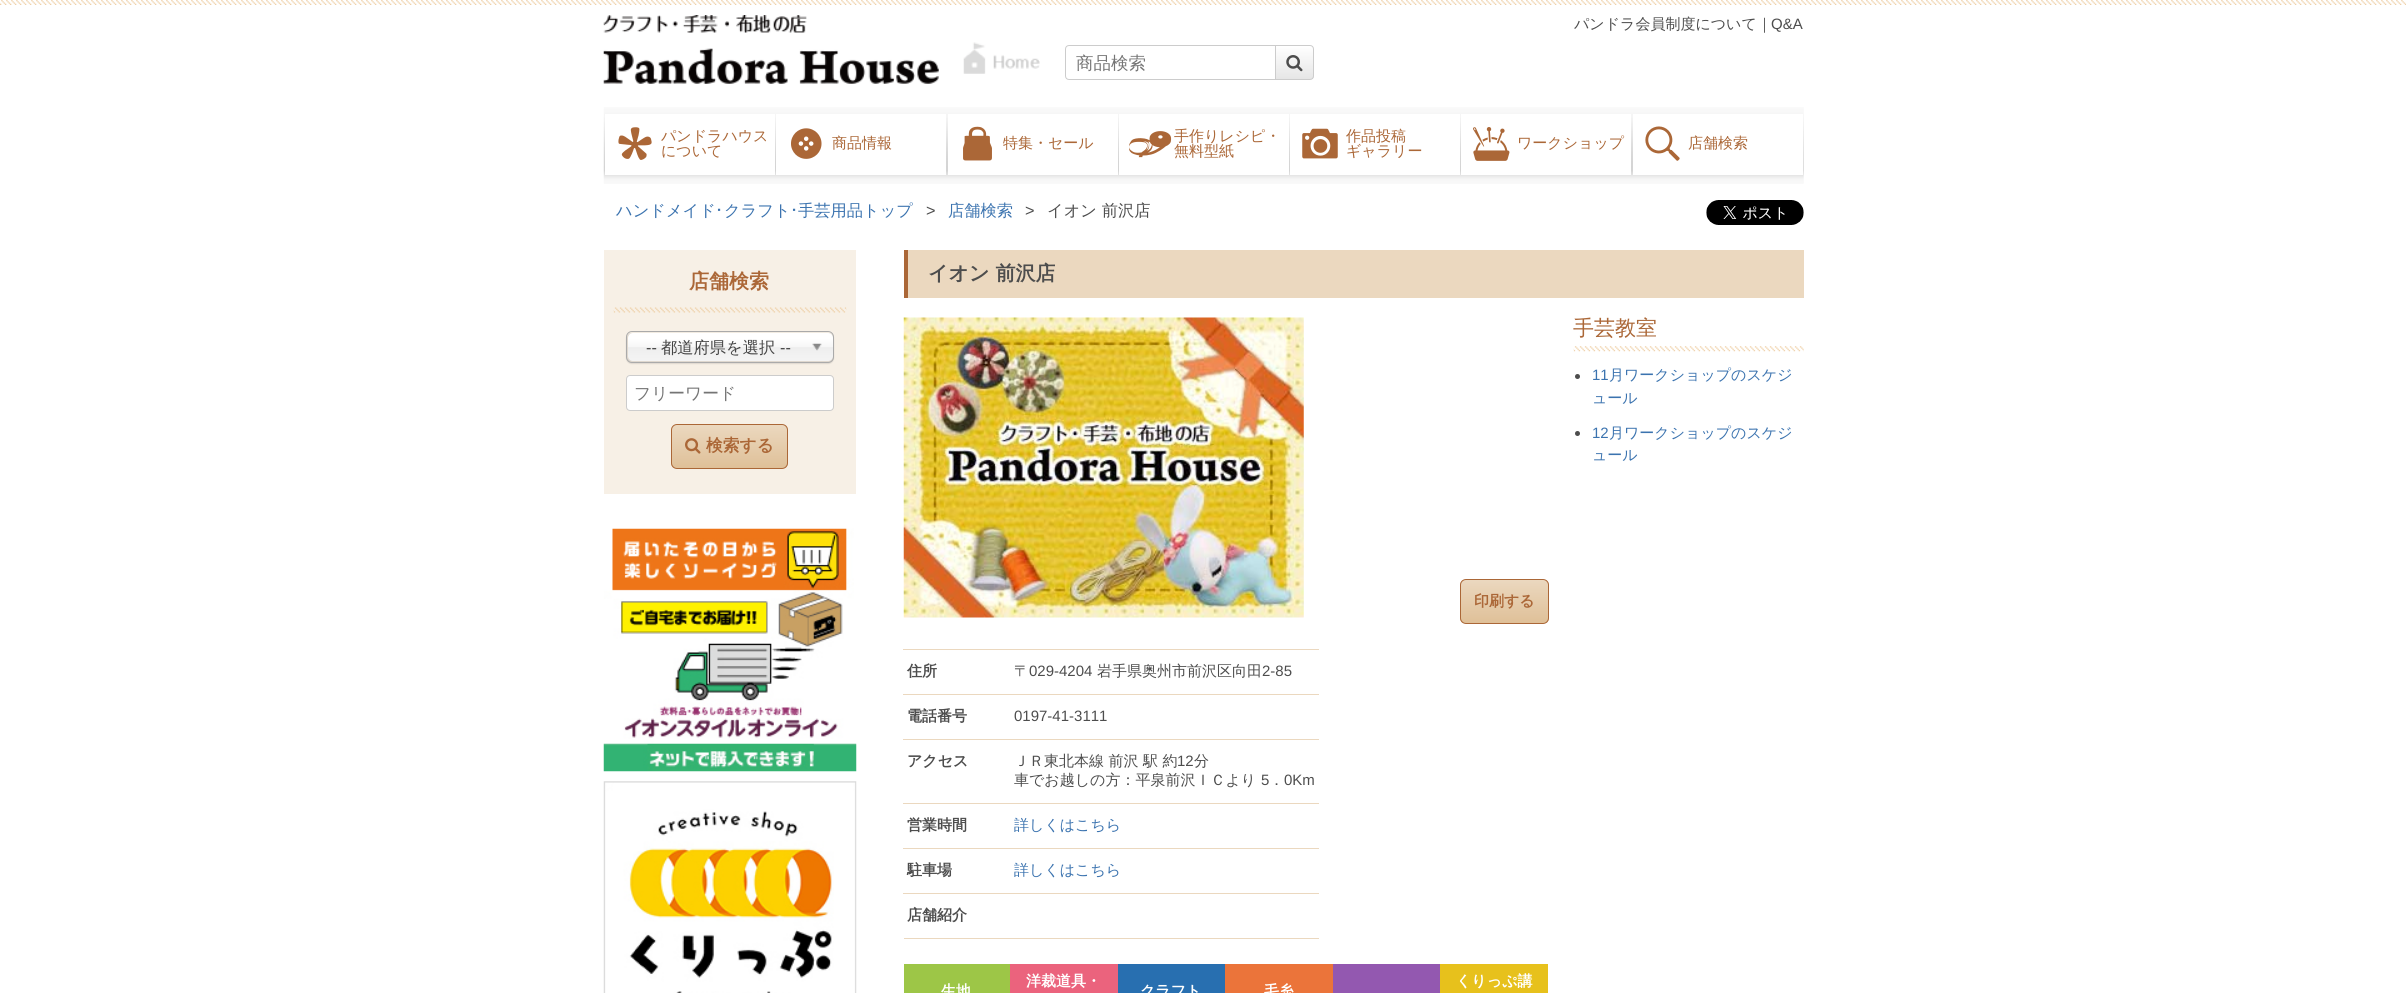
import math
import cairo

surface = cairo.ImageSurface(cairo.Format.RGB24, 2406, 993)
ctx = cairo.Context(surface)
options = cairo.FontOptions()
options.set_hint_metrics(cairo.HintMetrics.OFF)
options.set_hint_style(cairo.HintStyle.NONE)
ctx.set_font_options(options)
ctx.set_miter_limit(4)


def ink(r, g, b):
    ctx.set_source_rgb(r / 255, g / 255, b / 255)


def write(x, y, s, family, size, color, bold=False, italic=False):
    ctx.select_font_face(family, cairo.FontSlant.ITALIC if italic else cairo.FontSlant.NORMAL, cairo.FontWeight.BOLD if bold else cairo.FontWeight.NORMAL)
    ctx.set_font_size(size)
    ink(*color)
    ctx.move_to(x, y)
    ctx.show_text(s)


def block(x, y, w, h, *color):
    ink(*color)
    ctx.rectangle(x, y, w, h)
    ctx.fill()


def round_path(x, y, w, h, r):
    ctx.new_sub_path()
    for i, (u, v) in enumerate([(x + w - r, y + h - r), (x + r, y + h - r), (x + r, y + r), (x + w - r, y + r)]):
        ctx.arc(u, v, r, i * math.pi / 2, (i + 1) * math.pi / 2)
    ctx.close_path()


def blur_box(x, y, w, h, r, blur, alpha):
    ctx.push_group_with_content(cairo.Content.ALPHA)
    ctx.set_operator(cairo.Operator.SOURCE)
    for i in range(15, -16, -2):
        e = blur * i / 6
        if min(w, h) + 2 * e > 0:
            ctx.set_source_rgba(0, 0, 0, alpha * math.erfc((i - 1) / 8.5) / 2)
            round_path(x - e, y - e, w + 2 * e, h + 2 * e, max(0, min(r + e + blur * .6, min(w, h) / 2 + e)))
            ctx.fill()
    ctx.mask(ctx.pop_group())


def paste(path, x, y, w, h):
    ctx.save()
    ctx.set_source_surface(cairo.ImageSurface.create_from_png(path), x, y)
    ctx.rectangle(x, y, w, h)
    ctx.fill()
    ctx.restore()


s1 = dict(family="WenQuanYi Zen Hei Medium", size=15, color=(77, 77, 77))
s2 = dict(family="Liberation Sans", size=15, color=(77, 77, 77))
s3 = dict(family="WenQuanYi Zen Hei Medium", size=17.5, color=(117, 117, 117))
s4 = dict(family="WenQuanYi Zen Hei Medium", size=15, color=(171, 103, 55))
s5 = dict(family="WenQuanYi Zen Hei Medium", size=16.25, color=(59, 115, 175))
s6 = dict(family="IPAPGothic", size=16.25, color=(59, 115, 175))
s7 = dict(family="Liberation Sans", size=16.25, color=(77, 77, 77))
s8 = dict(family="WenQuanYi Zen Hei Medium", size=16.25, color=(77, 77, 77))
s9 = dict(family="WenQuanYi Zen Hei", size=20, color=(171, 103, 55), bold=True)
s10 = dict(family="Liberation Sans", size=16.25, color=(68, 68, 68))
s11 = dict(family="WenQuanYi Zen Hei Medium", size=16.25, color=(68, 68, 68))
s12 = dict(family="WenQuanYi Zen Hei Medium", size=16.75, color=(117, 117, 117))
s13 = dict(family="WenQuanYi Zen Hei", size=16.75, color=(171, 103, 55), bold=True)
s14 = dict(family="WenQuanYi Zen Hei", size=20, color=(77, 77, 77), bold=True)
s15 = dict(family="WenQuanYi Zen Hei Medium", size=21, color=(171, 103, 55))
s16 = dict(family="Liberation Sans", size=15, color=(59, 115, 175))
s17 = dict(family="WenQuanYi Zen Hei Medium", size=15, color=(59, 115, 175))
s18 = dict(family="WenQuanYi Zen Hei", size=15, color=(171, 103, 55), bold=True)
s19 = dict(family="WenQuanYi Zen Hei", size=15, color=(77, 77, 77), bold=True)
s20 = dict(family="WenQuanYi Zen Hei", size=15, color=(255, 255, 255), bold=True)

ink(255, 255, 255)
ctx.paint()
paste("pic1.png", 0, 0, 2406, 5)
write(1574, 29, "パンドラ会員制度について", **s1)
write(1757, 29, "｜", **s1)
write(1771, 29, "Q&A", **s2)
paste("pic2.png", 603, 15, 437, 69)
ctx.new_path()
ctx.move_to(1069, 45.5)
ctx.line_to(1275.5, 45.5)
ctx.line_to(1275.5, 79.5)
ctx.line_to(1069, 79.5)
ctx.curve_to(1067, 79.5, 1065.5, 78, 1065.5, 76)
ctx.line_to(1065.5, 49)
ctx.curve_to(1065.5, 47, 1067, 45.5, 1069, 45.5)
ctx.close_path()
ink(204, 204, 204)
ctx.set_line_width(1)
ctx.stroke()
write(1076, 69, "商品検索", **s3)
ctx.save()
ctx.new_path()
ctx.move_to(1275, 45)
ctx.line_to(1310, 45)
ctx.curve_to(1312, 45, 1314, 47, 1314, 49)
ctx.line_to(1314, 76)
ctx.curve_to(1314, 78, 1312, 80, 1310, 80)
ctx.line_to(1275, 80)
ctx.close_path()
ctx.clip()
gradient = cairo.LinearGradient(1294, 46, 1294, 79)
gradient.add_color_stop_rgba(0, 1, 1, 1, 1)
gradient.add_color_stop_rgba(1, 0.902, 0.902, 0.902, 1)
ctx.set_source(gradient)
ctx.rectangle(1276, 46, 38, 33)
ctx.fill()
ctx.restore()
ctx.new_path()
ctx.move_to(1275.5, 45.5)
ctx.line_to(1310, 45.5)
ctx.curve_to(1312, 45.5, 1313.5, 47, 1313.5, 49)
ctx.line_to(1313.5, 76)
ctx.curve_to(1313.5, 78, 1312, 79.5, 1310, 79.5)
ctx.line_to(1275.5, 79.5)
ctx.close_path()
ink(204, 204, 204)
ctx.stroke()
paste("pic3.png", 1286, 55, 17, 17)
paste("pic4.png", 603, 107, 1201, 77)
block(605, 114, 170, 61, 255, 255, 255)
paste("pic5.png", 618, 127, 34, 33)
write(661, 141, "パンドラハウス", **s4)
write(661, 156, "について", **s4)
block(776, 114, 170, 61, 255, 255, 255)
paste("pic6.png", 791, 128, 31, 31)
write(832, 148, "商品情報", **s4)
block(948, 114, 170, 61, 255, 255, 255)
paste("pic7.png", 963, 126, 29, 35)
write(1003, 148, "特集・セール", **s4)
block(1119, 114, 170, 61, 255, 255, 255)
paste("pic8.png", 1129, 131, 43, 27)
write(1174, 141, "手作りレシピ・", **s4)
write(1174, 156, "無料型紙", **s4)
block(1290, 114, 170, 61, 255, 255, 255)
paste("pic9.png", 1302, 128, 36, 31)
write(1346, 141, "作品投稿", **s4)
write(1346, 156, "ギャラリー", **s4)
block(1461, 114, 170, 61, 255, 255, 255)
paste("pic10.png", 1473, 127, 37, 34)
write(1517, 148, "ワークショップ", **s4)
block(1633, 114, 170, 61, 255, 255, 255)
paste("pic11.png", 1645, 126, 35, 35)
write(1688, 148, "店舗検索", **s4)
write(616, 216, "ハンドメイド", **s5)
write(715, 216, "･", **s6)
write(724, 216, "クラフト", **s5)
write(790, 216, "･", **s6)
write(798, 216, "手芸用品トップ", **s5)
write(926, 216, ">", **s7)
write(948, 216, "店舗検索", **s5)
write(1025, 216, ">", **s7)
write(1047, 216, "イオン 前沢店", **s8)
paste("pic12.png", 1706, 200, 98, 25)
block(604, 250, 252, 244, 247, 240, 230)
paste("pic13.png", 613, 307, 234, 6)
write(689, 288, "店舗検索", **s9)
ink(0, 0, 0)
blur_box(626, 333, 208, 31, 6, 0.5, 0.1)
gradient = cairo.LinearGradient(730, 333, 730, 361)
gradient.add_color_stop_rgba(0.2, 1, 1, 1, 1)
gradient.add_color_stop_rgba(0.5, 0.965, 0.965, 0.965, 1)
gradient.add_color_stop_rgba(0.52, 0.933, 0.933, 0.933, 1)
gradient.add_color_stop_rgba(1, 0.957, 0.957, 0.957, 1)
ctx.set_source(gradient)
round_path(628, 333, 205, 28, 5)
ctx.fill()
round_path(626.5, 331.5, 207, 31, 5.5)
ink(170, 170, 170)
ctx.stroke()
write(646, 353, "--", **s10)
write(661, 353, "都道府県を選択", **s11)
write(780, 353, "--", **s10)
paste("pic14.png", 812, 343, 10, 8)
ink(255, 255, 255)
round_path(626.5, 375.5, 207, 35, 3.5)
ctx.fill_preserve()
ink(204, 204, 204)
ctx.stroke()
write(634, 399, "フリーワード", **s12)
ctx.save()
round_path(671, 424, 117, 45, 6)
ctx.clip()
gradient = cairo.LinearGradient(729, 425, 729, 468)
gradient.add_color_stop_rgba(0, 0.922, 0.847, 0.749, 1)
gradient.add_color_stop_rgba(1, 0.875, 0.753, 0.596, 1)
ctx.set_source(gradient)
ctx.rectangle(671, 425, 117, 43)
ctx.fill()
ctx.restore()
round_path(671.5, 424.5, 116, 44, 5.5)
ink(171, 103, 55)
ctx.stroke()
paste("pic15.png", 685, 438, 16, 16)
write(706, 451, "検索する", **s13)
paste("pic16.png", 603, 528, 254, 244)
paste("pic17.png", 603, 781, 254, 212)
block(908, 250, 896, 48, 235, 216, 191)
block(904, 250, 4, 48, 171, 103, 55)
write(928, 280, "イオン 前沢店", **s14)
paste("pic18.png", 1573, 346, 231, 6)
write(1573, 335, "手芸教室", **s15)
ink(77, 77, 77)
ctx.new_path()
ctx.arc(1577.5, 376.5, 2.5, 0, 2 * math.pi)
ctx.fill()
write(1592, 380, "11", **s16)
write(1609, 380, "月ワークショップのスケジ", **s17)
write(1592, 403, "ュール", **s17)
ink(77, 77, 77)
ctx.new_path()
ctx.arc(1577.5, 433.5, 2.5, 0, 2 * math.pi)
ctx.fill()
write(1592, 438, "12", **s16)
write(1609, 438, "月ワークショップのスケジ", **s17)
write(1592, 460, "ュール", **s17)
paste("pic19.png", 903, 317, 401, 301)
ctx.save()
round_path(1460, 579, 89, 45, 6)
ctx.clip()
gradient = cairo.LinearGradient(1504, 580, 1504, 623)
gradient.add_color_stop_rgba(0, 0.922, 0.847, 0.749, 1)
gradient.add_color_stop_rgba(1, 0.875, 0.753, 0.596, 1)
ctx.set_source(gradient)
ctx.rectangle(1460, 580, 89, 43)
ctx.fill()
ctx.restore()
round_path(1460.5, 579.5, 88, 44, 5.5)
ink(171, 103, 55)
ctx.stroke()
write(1474, 606, "印刷する", **s18)
block(904, 938, 415, 1, 235, 216, 191)
write(907, 676, "住所", **s19)
block(903, 649, 416, 1, 235, 216, 191)
write(1014, 676, "〒", **s1)
write(1029, 676, "029-4204", **s2)
write(1097, 676, "岩手県奥州市前沢区向田", **s1)
write(1262, 676, "2-85", **s2)
write(907, 721, "電話番号", **s19)
block(903, 694, 416, 1, 235, 216, 191)
write(1014, 721, "0197-41-3111", **s2)
write(907, 766, "アクセス", **s19)
block(903, 739, 416, 1, 235, 216, 191)
write(1014, 766, "ＪＲ東北本線 前沢 駅 約", **s1)
write(1177, 766, "12", **s2)
write(1194, 766, "分", **s1)
write(1014, 785, "車でお越しの方：平泉前沢ＩＣより", **s1)
write(1261, 785, "5", **s2)
write(1269, 785, "．", **s1)
write(1284, 785, "0Km", **s2)
write(907, 830, "営業時間", **s19)
block(903, 803, 416, 1, 235, 216, 191)
write(1014, 830, "詳しくはこちら", **s17)
write(907, 875, "駐車場", **s19)
block(903, 848, 416, 1, 235, 216, 191)
write(1014, 875, "詳しくはこちら", **s17)
block(903, 893, 416, 1, 235, 216, 191)
write(907, 920, "店舗紹介", **s19)
block(904, 964, 106, 29, 157, 198, 71)
write(941, 996, "生地", **s20)
block(1010, 964, 108, 29, 235, 99, 125)
write(1026, 986, "洋裁道具・", **s20)
block(1118, 964, 107, 29, 40, 111, 176)
write(1140, 996, "クラフト", **s20)
block(1225, 964, 108, 29, 235, 116, 58)
write(1264, 996, "毛糸", **s20)
block(1333, 964, 107, 29, 147, 88, 176)
block(1440, 964, 108, 29, 231, 193, 28)
write(1456, 986, "くりっぷ講", **s20)
surface.write_to_png("screenshot.png")
